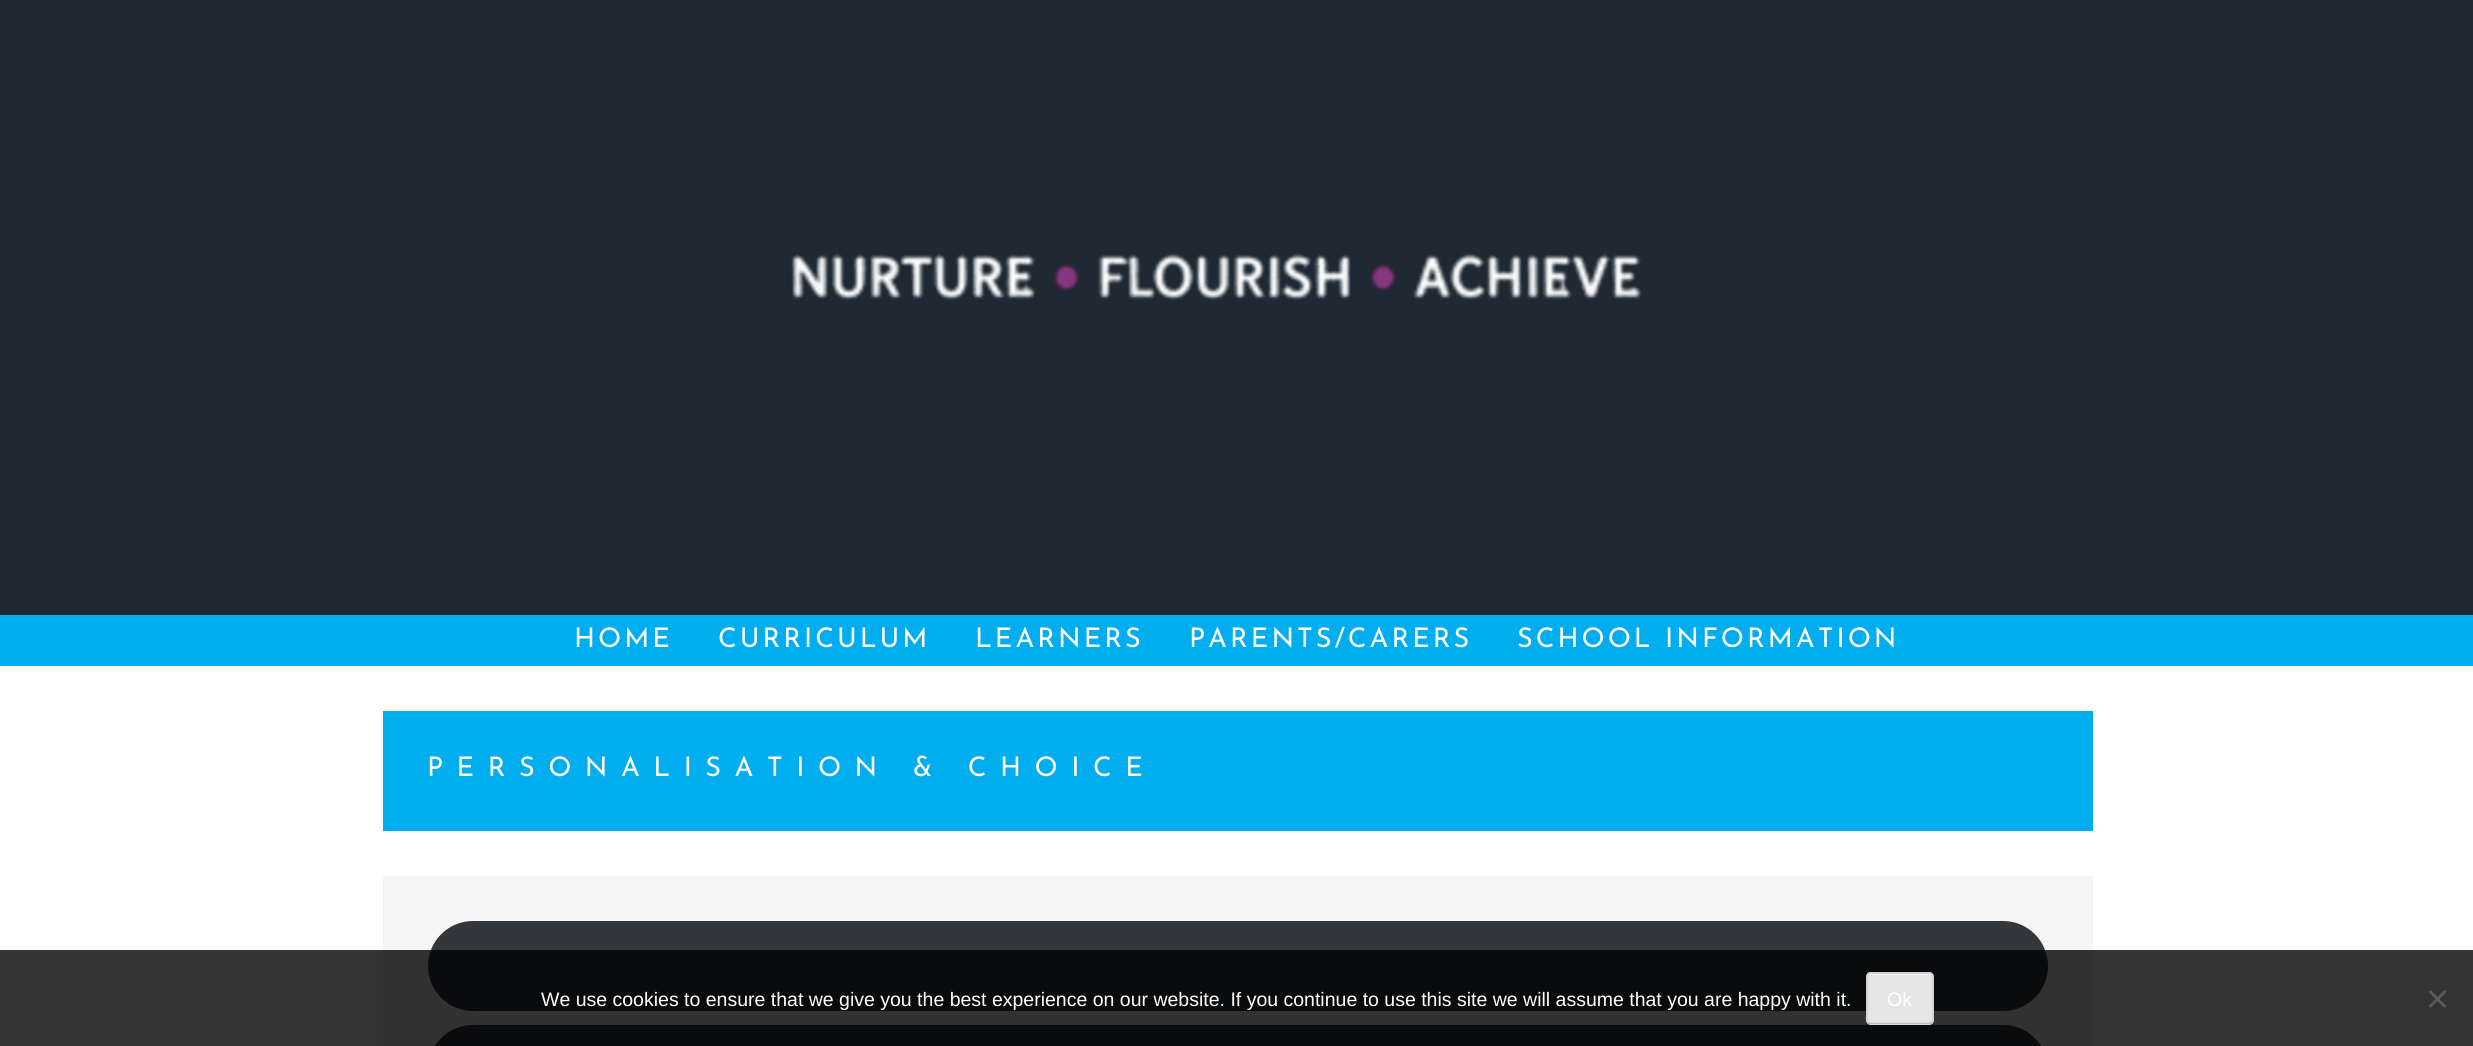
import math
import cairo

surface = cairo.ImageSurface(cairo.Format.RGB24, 2473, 1046)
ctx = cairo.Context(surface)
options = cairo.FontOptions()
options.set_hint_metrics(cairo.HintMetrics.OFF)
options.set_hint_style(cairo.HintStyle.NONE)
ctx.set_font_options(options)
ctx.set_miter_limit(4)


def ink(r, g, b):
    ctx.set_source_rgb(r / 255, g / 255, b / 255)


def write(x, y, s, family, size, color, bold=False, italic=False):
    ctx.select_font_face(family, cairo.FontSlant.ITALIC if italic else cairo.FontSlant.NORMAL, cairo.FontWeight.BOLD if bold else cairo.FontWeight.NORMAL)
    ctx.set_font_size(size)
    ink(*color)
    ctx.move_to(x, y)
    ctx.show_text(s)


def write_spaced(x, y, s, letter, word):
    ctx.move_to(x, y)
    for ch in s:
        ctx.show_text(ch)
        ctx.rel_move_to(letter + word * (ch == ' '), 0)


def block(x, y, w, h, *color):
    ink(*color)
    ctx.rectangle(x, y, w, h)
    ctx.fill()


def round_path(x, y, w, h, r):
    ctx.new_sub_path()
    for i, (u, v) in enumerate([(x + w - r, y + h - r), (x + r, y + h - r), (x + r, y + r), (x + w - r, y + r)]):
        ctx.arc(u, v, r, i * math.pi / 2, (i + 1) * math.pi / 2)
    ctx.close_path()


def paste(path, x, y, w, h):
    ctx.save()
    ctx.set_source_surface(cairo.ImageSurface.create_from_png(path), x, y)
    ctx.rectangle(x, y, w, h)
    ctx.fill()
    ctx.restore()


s1 = dict(family="Liberation Sans", size=19.5, color=(255, 255, 255))

ink(255, 255, 255)
ctx.paint()
block(0, 0, 2473, 615, 31, 41, 51)
paste("pic1.png", 791, 253, 851, 48)
block(0, 615, 2473, 51, 0, 174, 239)
ctx.select_font_face("Josefin Sans")
ctx.set_font_size(27)
ink(255, 255, 255)
write_spaced(574, 647, "HOME", 3, 0)
write_spaced(718, 647, "CURRICULUM", 3, 0)
write_spaced(975, 647, "LEARNERS", 3, 0)
write_spaced(1189, 647, "PARENTS/CARERS", 3, 0)
write_spaced(1517, 647, "SCHOOL INFORMATION", 3, 0)
block(383, 711, 1710, 120, 0, 174, 239)
ink(255, 255, 255)
write_spaced(427, 776, "PERSONALISATION & CHOICE", 13.5, 0)
block(383, 876, 1710, 170, 245, 245, 245)
ink(50, 55, 60)
round_path(428, 921, 1620, 90, 45)
ctx.fill()
round_path(428, 1025, 1620, 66, 45)
ctx.fill()
ctx.set_source_rgba(0, 0, 0, 0.8)
ctx.rectangle(0, 950, 2473, 96)
ctx.fill()
write(541, 1006, "We use cookies to ensure that we give you the best experience on our website. If you continue to use this site we will assume that you are happy with it.", **s1)
ink(230, 230, 230)
round_path(1866, 972, 68, 53, 5)
ctx.fill()
ink(243, 243, 243)
ctx.new_path()
ctx.move_to(1870, 975)
ctx.line_to(1929, 975)
ctx.curve_to(1931, 975, 1932, 976, 1932, 978)
ctx.curve_to(1932, 972, 1924, 974, 1919, 974)
ctx.line_to(1881, 974)
ctx.curve_to(1876, 974, 1868, 972, 1868, 978)
ctx.curve_to(1868, 976, 1869, 975, 1870, 975)
ctx.close_path()
ctx.fill()
ctx.new_path()
ctx.move_to(1931.5, 1022.5)
ctx.line_to(1929.5, 1023.5)
ctx.line_to(1870, 1023.5)
ctx.line_to(1868, 1022.5)
ink(187, 187, 187)
ctx.set_line_width(1.5)
ctx.stroke()
ctx.new_path()
ctx.move_to(1868, 1022.5)
ctx.curve_to(1865.5, 1020.5, 1867, 1014.5, 1867, 1013)
ctx.line_to(1867, 984)
ctx.curve_to(1867, 970.5, 1866.5, 973, 1880, 973)
ctx.line_to(1919, 973)
ctx.curve_to(1933, 973, 1933, 970.5, 1933, 984)
ctx.line_to(1933, 1013)
ctx.curve_to(1933, 1014.5, 1934, 1020.5, 1931.5, 1022.5)
ink(204, 204, 204)
ctx.stroke()
write(1887, 1006, "Ok", **s1)
ink(90, 90, 90)
ctx.new_path()
ctx.move_to(2444.5, 990)
ctx.line_to(2446.5, 992)
ctx.line_to(2430.5, 1008)
ctx.line_to(2428.5, 1006)
ctx.close_path()
ctx.fill()
ctx.new_path()
ctx.move_to(2428.5, 992)
ctx.line_to(2430.5, 990)
ctx.line_to(2446.5, 1006)
ctx.line_to(2444.5, 1008)
ctx.close_path()
ctx.fill()
surface.write_to_png("screenshot.png")
